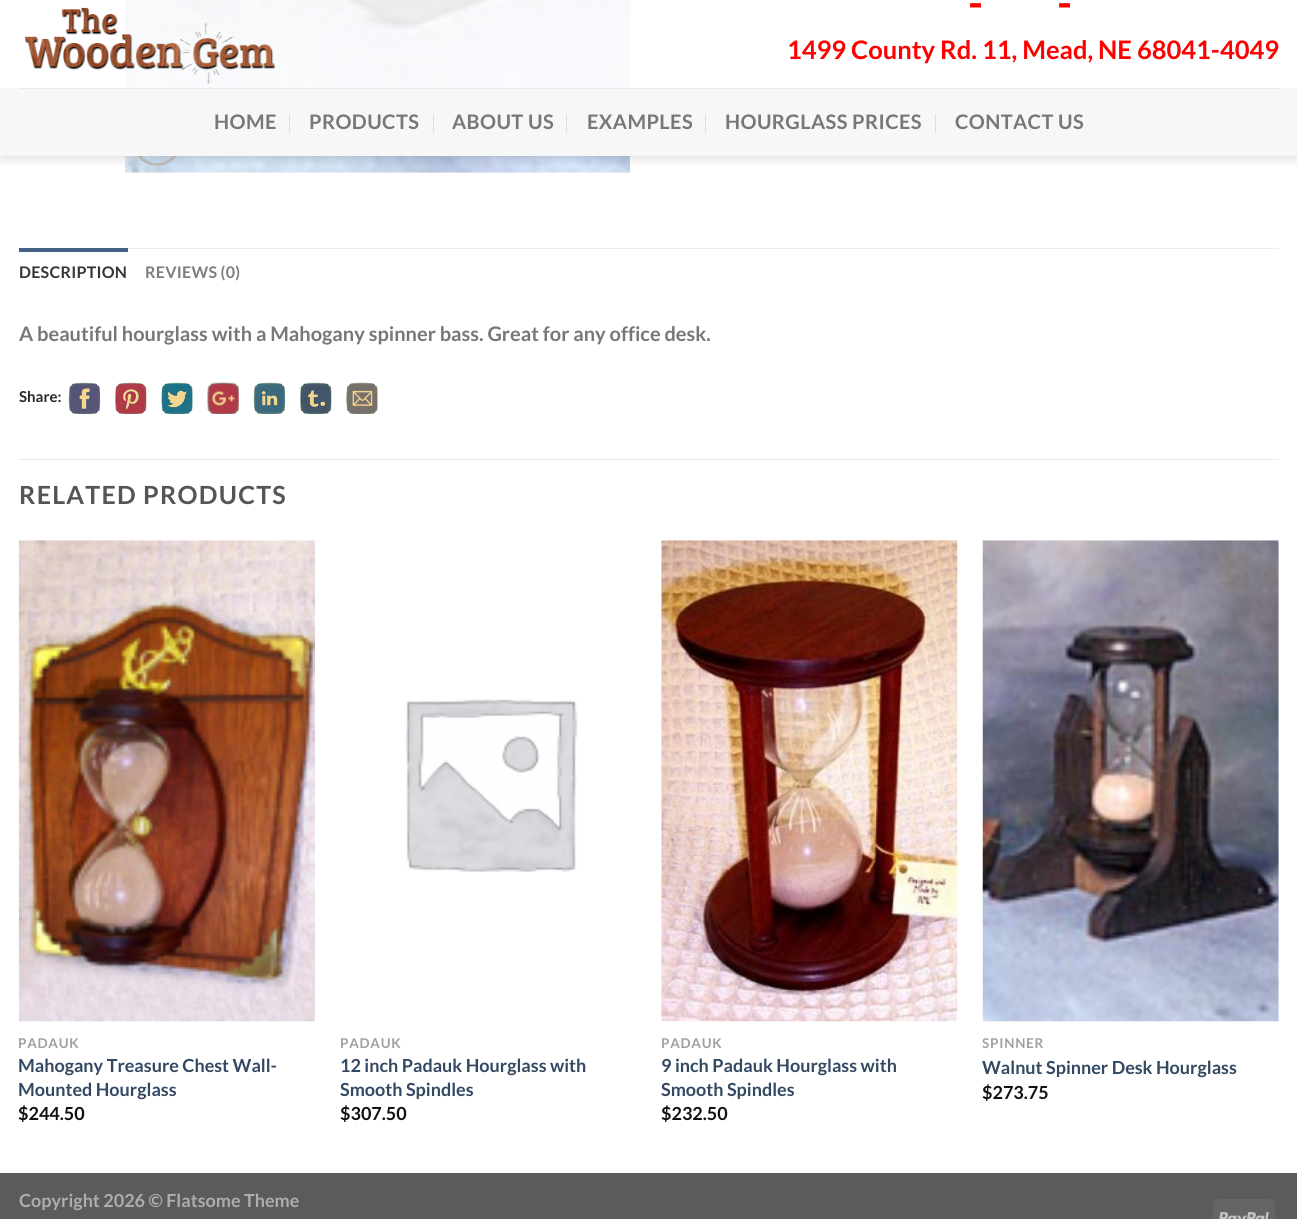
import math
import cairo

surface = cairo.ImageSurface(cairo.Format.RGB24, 1297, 1219)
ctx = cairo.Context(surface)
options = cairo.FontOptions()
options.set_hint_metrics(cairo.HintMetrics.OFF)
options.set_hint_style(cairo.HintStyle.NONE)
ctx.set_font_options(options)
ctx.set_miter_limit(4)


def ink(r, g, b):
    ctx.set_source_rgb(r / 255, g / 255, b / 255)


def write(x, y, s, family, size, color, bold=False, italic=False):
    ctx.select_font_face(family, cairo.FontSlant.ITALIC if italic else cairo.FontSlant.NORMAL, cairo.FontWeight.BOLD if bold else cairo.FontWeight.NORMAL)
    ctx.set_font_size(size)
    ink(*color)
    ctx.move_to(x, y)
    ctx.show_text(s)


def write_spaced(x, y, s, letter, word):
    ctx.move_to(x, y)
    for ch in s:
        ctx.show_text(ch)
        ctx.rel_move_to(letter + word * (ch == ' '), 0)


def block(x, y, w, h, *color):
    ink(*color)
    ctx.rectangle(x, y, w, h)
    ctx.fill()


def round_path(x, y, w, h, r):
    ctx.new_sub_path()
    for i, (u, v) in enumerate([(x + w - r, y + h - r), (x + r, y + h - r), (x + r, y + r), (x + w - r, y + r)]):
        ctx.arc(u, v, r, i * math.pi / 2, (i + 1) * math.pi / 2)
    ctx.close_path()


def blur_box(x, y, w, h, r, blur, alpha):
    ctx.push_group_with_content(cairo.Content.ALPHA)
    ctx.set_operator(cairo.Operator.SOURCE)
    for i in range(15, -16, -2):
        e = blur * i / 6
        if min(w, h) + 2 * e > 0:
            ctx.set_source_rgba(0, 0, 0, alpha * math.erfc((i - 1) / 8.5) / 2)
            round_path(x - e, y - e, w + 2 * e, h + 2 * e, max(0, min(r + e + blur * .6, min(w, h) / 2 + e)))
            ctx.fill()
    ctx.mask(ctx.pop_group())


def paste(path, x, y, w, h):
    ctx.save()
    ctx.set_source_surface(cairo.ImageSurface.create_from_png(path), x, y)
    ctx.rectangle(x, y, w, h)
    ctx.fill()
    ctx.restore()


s1 = dict(family="Lato", size=42, color=(255, 0, 0), bold=True)
s2 = dict(family="Lato", size=25.5, color=(255, 0, 0), bold=True)
s3 = dict(family="Lato", size=20, color=(119, 119, 119), bold=True)
s4 = dict(family="Lato", size=15, color=(39, 39, 39), bold=True)
s5 = dict(family="Lato", size=18, color=(51, 72, 98), bold=True)
s6 = dict(family="Lato", size=18, color=(17, 17, 17), bold=True)
s7 = dict(family="Lato", size=18, color=(173, 173, 173), bold=True)

ink(255, 255, 255)
ctx.paint()
paste("pic2.png", 125, 0, 505, 173)
ctx.arc(157, 142, 22.5, 0, 2 * math.pi)
ink(192, 192, 192)
ctx.set_line_width(3)
ctx.stroke()
ctx.save()
ctx.rectangle(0, 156, 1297, 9)
ctx.clip()
ink(0, 0, 0)
blur_box(1, 1, 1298, 157, 0, 6, 0.15)
ctx.restore()
ctx.set_source_rgba(1, 1, 1, 0.9)
ctx.rectangle(125, 0, 505, 88)
ctx.fill()
paste("pic1.png", 25, 7, 251, 77)
write(968, 18, "-", **s1)
write(1057, 18, "-", **s1)
write(787, 59, "1499 County Rd. 11, Mead, NE 68041-4049", **s2)
block(0, 88, 1297, 68, 247, 247, 247)
block(19, 88, 1260, 1, 234, 234, 234)
ctx.set_font_size(20)
ink(119, 119, 119)
write_spaced(214, 129, "HOME", 0.4, 0)
block(289, 114, 1, 19, 222, 222, 222)
ink(119, 119, 119)
write_spaced(309, 129, "PRODUCTS", 0.4, 0)
block(433, 114, 1, 19, 222, 222, 222)
ink(119, 119, 119)
write_spaced(452, 129, "ABOUT US", 0.4, 0)
block(566, 114, 1, 19, 222, 222, 222)
ink(119, 119, 119)
write_spaced(587, 129, "EXAMPLES", 0.4, 0)
block(705, 114, 1, 19, 222, 222, 222)
ink(119, 119, 119)
write_spaced(725, 129, "HOURGLASS PRICES", 0.4, 0)
block(935, 114, 1, 19, 222, 222, 222)
ink(119, 119, 119)
write_spaced(955, 129, "CONTACT US", 0.4, 0)
block(128, 248, 1151, 1, 236, 236, 236)
block(19, 248, 109, 4, 68, 96, 132)
ctx.set_font_size(16)
ink(54, 54, 54)
write_spaced(19, 278, "DESCRIPTION", 0.25, 0)
ink(125, 125, 125)
write_spaced(145, 278, "REVIEWS (0)", 0.25, 0)
write(19, 341, "A beautiful hourglass with a Mahogany spinner bass. Great for any office desk.", **s3)
write(19, 402, "Share:", **s4)
paste("pic3.png", 68, 382, 32, 32)
paste("pic4.png", 115, 382, 32, 32)
paste("pic5.png", 161, 382, 32, 32)
paste("pic6.png", 207, 382, 32, 32)
paste("pic7.png", 253, 382, 32, 32)
paste("pic8.png", 300, 382, 32, 32)
paste("pic9.png", 346, 382, 32, 32)
block(19, 459, 1260, 1, 236, 236, 236)
ctx.set_font_size(25)
ink(85, 85, 85)
write_spaced(19, 504, "RELATED PRODUCTS", 1.25, 0)
paste("pic10.png", 18, 540, 297, 482)
ctx.set_font_size(13.5)
ink(160, 160, 160)
write_spaced(18, 1048, "PADAUK", 0.75, 0)
write(18, 1072, "Mahogany Treasure Chest Wall-", **s5)
write(18, 1096, "Mounted Hourglass", **s5)
write(18, 1120, "$244.50", **s6)
paste("pic11.png", 405, 699, 173, 173)
ctx.set_font_size(13.5)
ink(160, 160, 160)
write_spaced(340, 1048, "PADAUK", 0.75, 0)
write(340, 1072, "12 inch Padauk Hourglass with", **s5)
write(340, 1096, "Smooth Spindles", **s5)
write(340, 1120, "$307.50", **s6)
paste("pic12.png", 661, 540, 297, 482)
ctx.set_font_size(13.5)
ink(160, 160, 160)
write_spaced(661, 1048, "PADAUK", 0.75, 0)
write(661, 1072, "9 inch Padauk Hourglass with", **s5)
write(661, 1096, "Smooth Spindles", **s5)
write(661, 1120, "$232.50", **s6)
paste("pic13.png", 982, 540, 297, 482)
ctx.set_font_size(13.5)
ink(160, 160, 160)
write_spaced(982, 1048, "SPINNER", 0.75, 0)
write(982, 1074, "Walnut Spinner Desk Hourglass", **s5)
write(982, 1099, "$273.75", **s6)
block(0, 1173, 1297, 46, 91, 91, 91)
write(19, 1207, "Copyright 2026 © Flatsome Theme", **s7)
ink(101, 101, 101)
round_path(1213, 1199, 62, 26, 6)
ctx.fill()
paste("pic14.png", 1219, 1212, 50, 7)
surface.write_to_png("screenshot.png")
